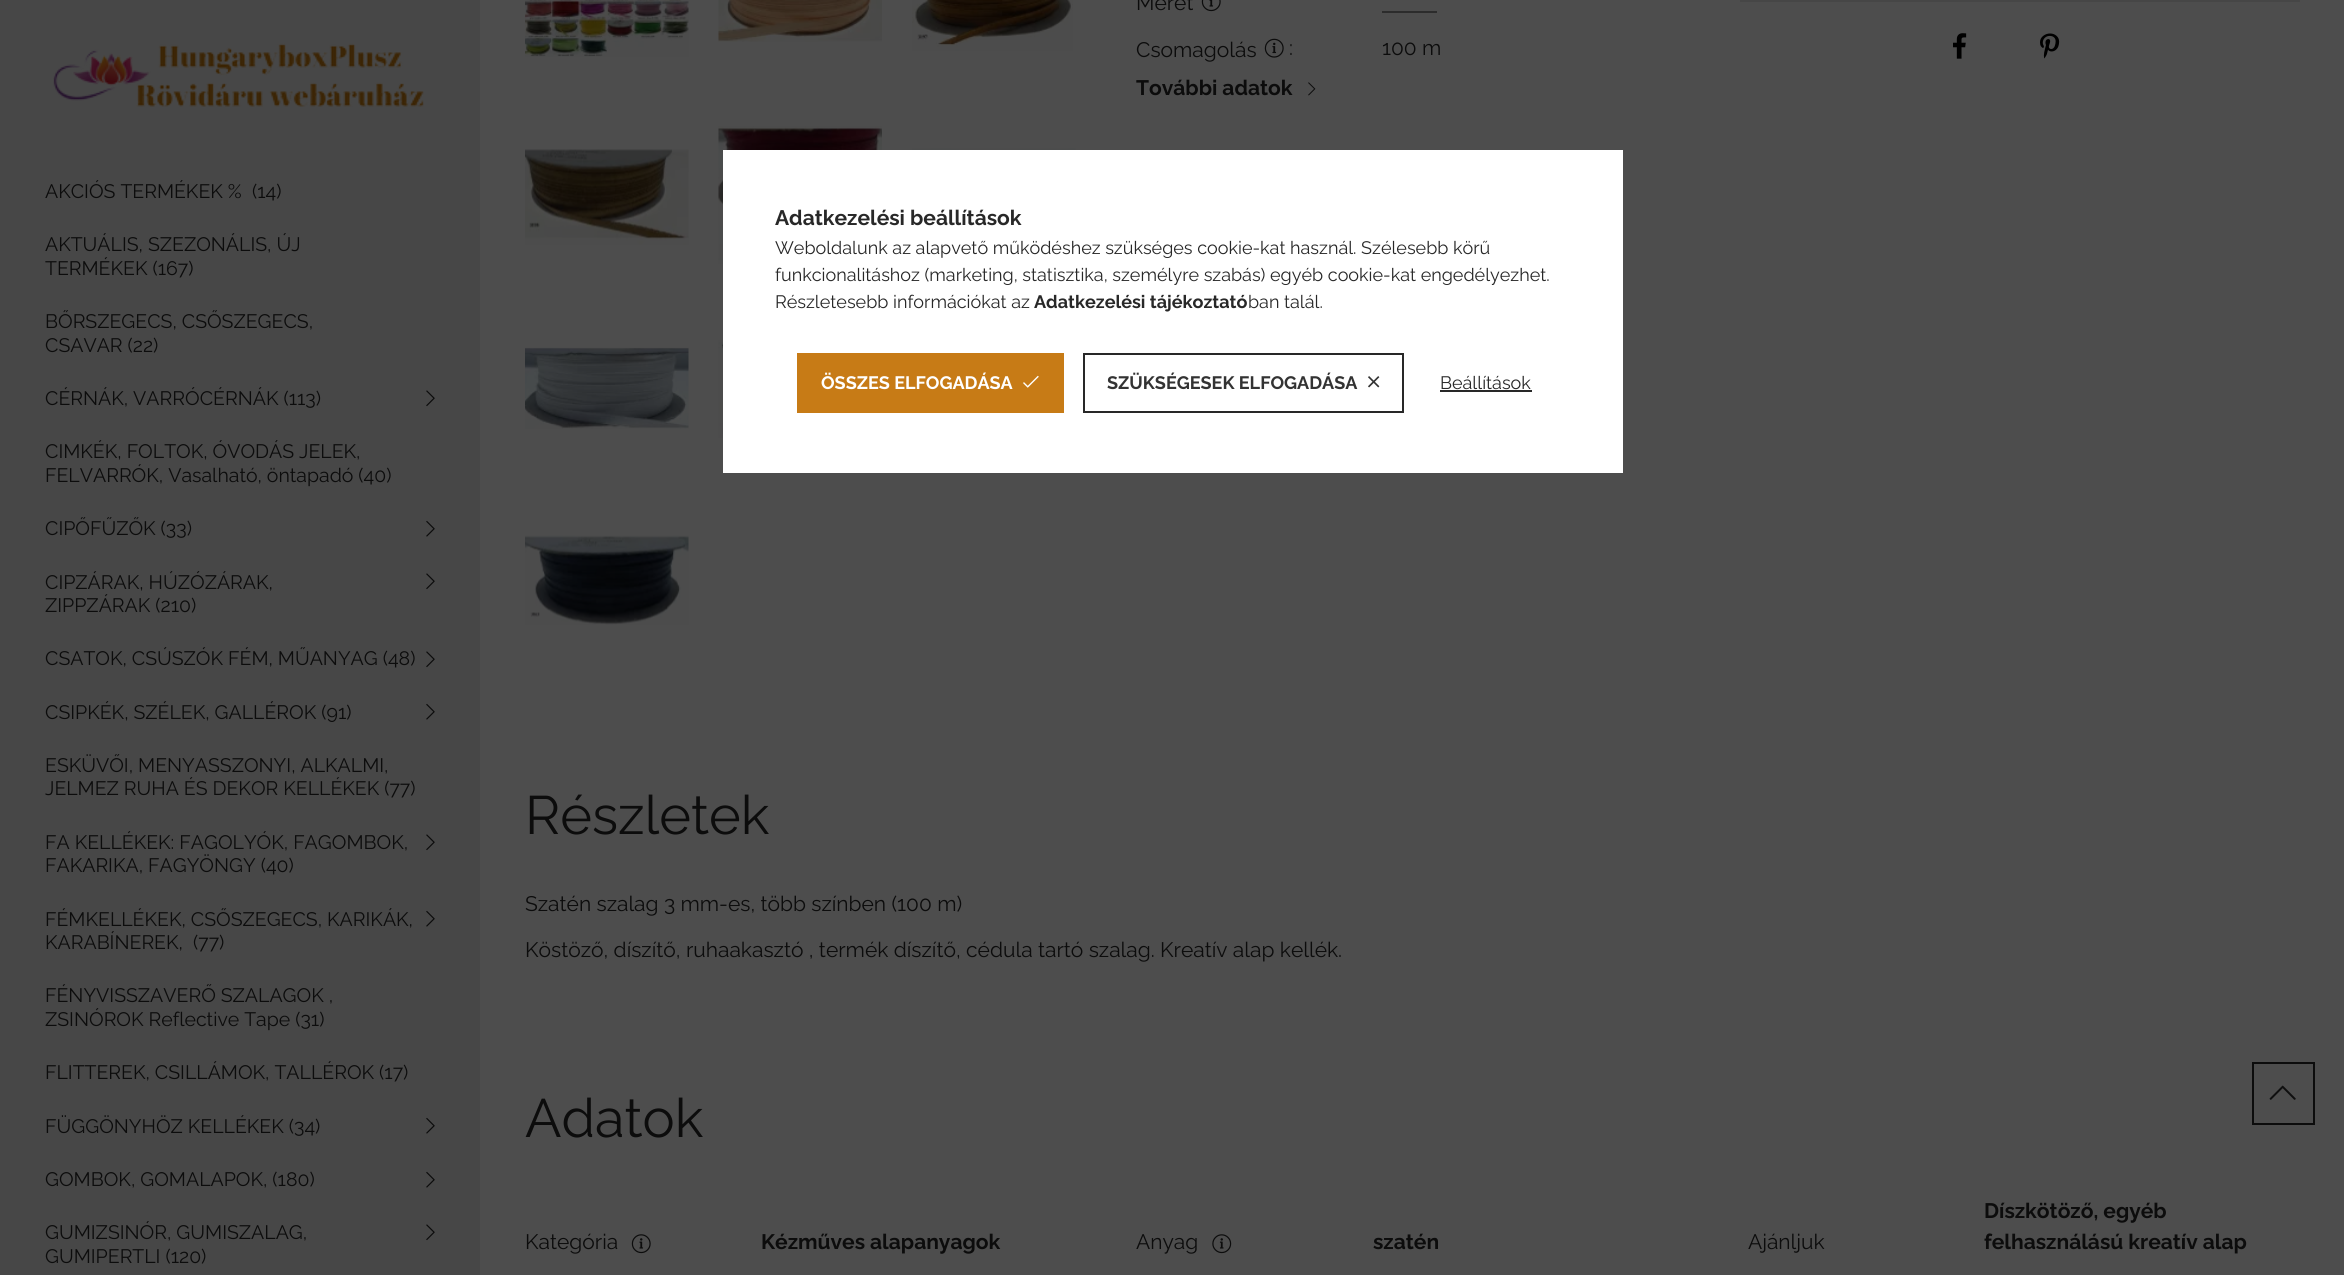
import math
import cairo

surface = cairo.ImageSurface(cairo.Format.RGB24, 2344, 1275)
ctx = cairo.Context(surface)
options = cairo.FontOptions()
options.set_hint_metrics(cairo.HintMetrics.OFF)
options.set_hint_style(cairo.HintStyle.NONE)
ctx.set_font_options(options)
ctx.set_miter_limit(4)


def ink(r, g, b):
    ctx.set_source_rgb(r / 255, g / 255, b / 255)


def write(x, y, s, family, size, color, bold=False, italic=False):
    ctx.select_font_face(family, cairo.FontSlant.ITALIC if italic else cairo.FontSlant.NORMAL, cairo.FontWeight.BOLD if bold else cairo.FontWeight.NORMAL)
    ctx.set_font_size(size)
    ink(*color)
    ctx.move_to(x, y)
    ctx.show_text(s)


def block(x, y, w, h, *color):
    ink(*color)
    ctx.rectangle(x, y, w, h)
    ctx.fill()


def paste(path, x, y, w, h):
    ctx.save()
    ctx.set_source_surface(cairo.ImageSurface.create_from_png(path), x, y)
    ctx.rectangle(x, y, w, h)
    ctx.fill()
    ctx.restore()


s1 = dict(family="Raleway", size=19.5, color=(12, 12, 12))
s2 = dict(family="Raleway", size=21, color=(12, 12, 12))
s3 = dict(family="Raleway", size=21, color=(12, 12, 12), bold=True)
s4 = dict(family="Raleway", size=54, color=(12, 12, 12))
s5 = dict(family="Raleway", size=21, color=(40, 40, 40), bold=True)
s6 = dict(family="Raleway", size=18, color=(40, 40, 40))
s7 = dict(family="Raleway", size=18, color=(40, 40, 40), bold=True)
s8 = dict(family="Raleway", size=18, color=(255, 255, 255), bold=True)
s9 = dict(family="Raleway", size=18, color=(51, 51, 51), bold=True)

ink(77, 77, 77)
ctx.paint()
block(0, 0, 480, 1275, 71, 71, 71)
paste("pic1.png", 53, 43, 371, 64)
write(45, 198, "AKCIÓS TERMÉKEK %", **s1)
write(252, 198, "(14)", **s1)
write(45, 251, "AKTUÁLIS, SZEZONÁLIS, ÚJ", **s1)
write(45, 275, "TERMÉKEK (167)", **s1)
write(45, 328, "BŐRSZEGECS, CSŐSZEGECS,", **s1)
write(45, 352, "CSAVAR (22)", **s1)
write(45, 405, "CÉRNÁK, VARRÓCÉRNÁK (113)", **s1)
paste("pic2.png", 426, 390, 9, 17)
write(45, 458, "CIMKÉK, FOLTOK, ÓVODÁS JELEK,", **s1)
write(45, 482, "FELVARRÓK, Vasalható, öntapadó (40)", **s1)
write(45, 535, "CIPŐFŰZŐK (33)", **s1)
paste("pic3.png", 426, 520, 9, 17)
write(45, 589, "CIPZÁRAK, HÚZÓZÁRAK,", **s1)
write(45, 612, "ZIPPZÁRAK (210)", **s1)
paste("pic2.png", 426, 573, 9, 17)
write(45, 665, "CSATOK, CSÚSZÓK FÉM, MŰANYAG (48)", **s1)
paste("pic2.png", 426, 651, 9, 17)
write(45, 719, "CSIPKÉK, SZÉLEK, GALLÉROK (91)", **s1)
paste("pic3.png", 426, 703, 9, 17)
write(45, 772, "ESKÜVŐI, MENYASSZONYI, ALKALMI,", **s1)
write(45, 795, "JELMEZ RUHA ÉS DEKOR KELLÉKEK (77)", **s1)
write(45, 849, "FA KELLÉKEK: FAGOLYÓK, FAGOMBOK,", **s1)
write(45, 872, "FAKARIKA, FAGYÖNGY (40)", **s1)
paste("pic2.png", 426, 834, 9, 17)
write(45, 926, "FÉMKELLÉKEK, CSŐSZEGECS, KARIKÁK,", **s1)
write(45, 949, "KARABÍNEREK,", **s1)
write(193, 949, "(77)", **s1)
paste("pic3.png", 426, 910, 9, 17)
write(45, 1002, "FÉNYVISSZAVERŐ SZALAGOK ,", **s1)
write(45, 1026, "ZSINÓROK Reflective Tape (31)", **s1)
write(45, 1079, "FLITTEREK, CSILLÁMOK, TALLÉROK (17)", **s1)
write(45, 1133, "FÜGGÖNYHÖZ KELLÉKEK (34)", **s1)
paste("pic3.png", 426, 1117, 9, 17)
write(45, 1186, "GOMBOK, GOMALAPOK, (180)", **s1)
paste("pic3.png", 426, 1171, 9, 17)
write(45, 1239, "GUMIZSINÓR, GUMISZALAG,", **s1)
write(45, 1263, "GUMIPERTLI (120)", **s1)
paste("pic2.png", 426, 1224, 9, 17)
paste("pic4.png", 525, 0, 164, 57)
paste("pic5.png", 718, 0, 164, 42)
paste("pic6.png", 912, 0, 161, 51)
paste("pic7.png", 525, 149, 164, 96)
paste("pic8.png", 718, 126, 164, 138)
paste("pic9.png", 912, 148, 164, 2)
paste("pic10.png", 525, 347, 164, 82)
paste("pic11.png", 718, 340, 5, 98)
paste("pic12.png", 525, 535, 164, 90)
write(1136, 10, "Méret", **s2)
paste("pic13.png", 1201, 0, 20, 12)
block(1382, 11, 55, 2, 44, 44, 44)
write(1136, 57, "Csomagolás", **s2)
paste("pic14.png", 1264, 38, 20, 20)
write(1289, 55, ":", **s2)
write(1382, 55, "100 m", **s2)
write(1136, 95, "További adatok", **s3)
paste("pic15.png", 1308, 82, 8, 14)
block(1740, 0, 560, 2, 70, 70, 70)
paste("pic16.png", 1953, 33, 14, 26)
paste("pic17.png", 2040, 33, 20, 26)
write(525, 834, "Részletek", **s4)
write(525, 911, "Szatén szalag 3 mm-es, több színben (100 m)", **s2)
write(525, 957, "Köstöző, díszítő, ruhaakasztó , termék díszítő, cédula tartó szalag. Kreatív alap kellék.", **s2)
write(525, 1137, "Adatok", **s4)
write(525, 1249, "Kategória", **s2)
paste("pic18.png", 631, 1234, 20, 20)
write(761, 1249, "Kézműves alapanyagok", **s3)
write(1136, 1249, "Anyag", **s2)
paste("pic19.png", 1212, 1234, 20, 20)
write(1373, 1249, "szatén", **s3)
write(1748, 1249, "Ajánljuk", **s2)
write(1984, 1218, "Díszkötöző, egyéb", **s3)
write(1984, 1249, "felhasználású kreatív alap", **s3)
block(723, 150, 900, 323, 255, 255, 255)
write(775, 225, "Adatkezelési beállítások", **s5)
write(775, 254, "Weboldalunk az alapvető működéshez szükséges cookie-kat használ. Szélesebb körű", **s6)
write(775, 281, "funkcionalitáshoz (marketing, statisztika, személyre szabás) egyéb cookie-kat engedélyezhet.", **s6)
write(775, 308, "Részletesebb információkat az", **s6)
write(1034, 308, "Adatkezelési tájékoztató", **s7)
write(1248, 308, "ban talál.", **s6)
block(797, 353, 267, 60, 199, 123, 22)
write(821, 389, "ÖSSZES ELFOGADÁSA", **s8)
paste("pic20.png", 1023, 375, 16, 13)
ctx.rectangle(1084, 354, 319, 58)
ink(40, 40, 40)
ctx.stroke()
write(1107, 389, "SZÜKSÉGESEK ELFOGADÁSA", **s9)
paste("pic21.png", 1368, 376, 12, 12)
write(1440, 389, "Beállítások", **s6)
block(1440, 390, 92, 2, 40, 40, 40)
ctx.rectangle(2253, 1063, 61, 61)
ink(12, 12, 12)
ctx.stroke()
paste("pic22.png", 2269, 1085, 27, 15)
surface.write_to_png("screenshot.png")
